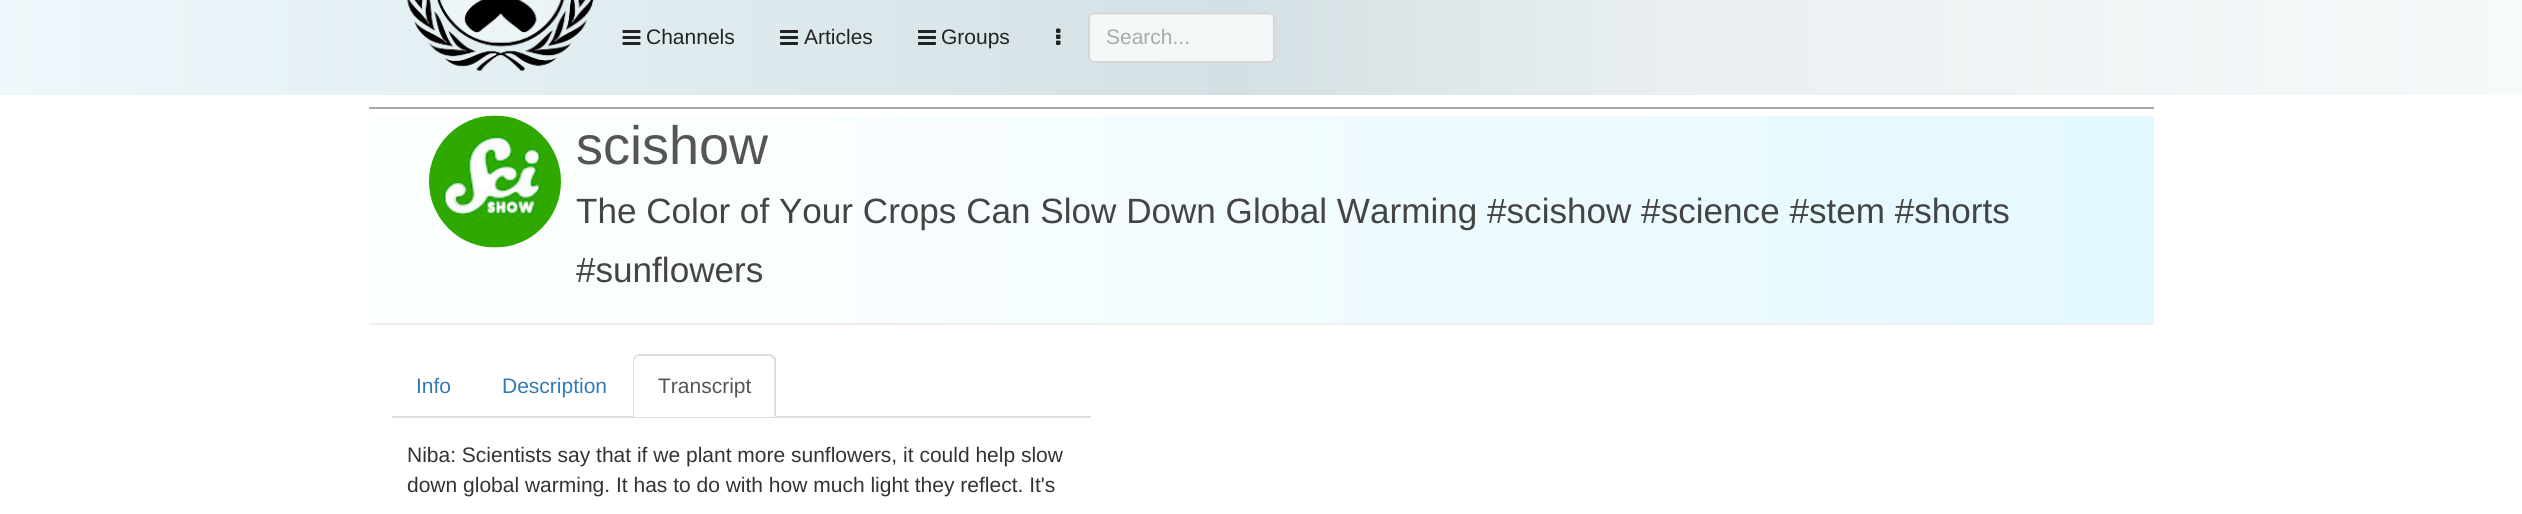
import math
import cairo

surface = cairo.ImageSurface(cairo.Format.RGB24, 2522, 514)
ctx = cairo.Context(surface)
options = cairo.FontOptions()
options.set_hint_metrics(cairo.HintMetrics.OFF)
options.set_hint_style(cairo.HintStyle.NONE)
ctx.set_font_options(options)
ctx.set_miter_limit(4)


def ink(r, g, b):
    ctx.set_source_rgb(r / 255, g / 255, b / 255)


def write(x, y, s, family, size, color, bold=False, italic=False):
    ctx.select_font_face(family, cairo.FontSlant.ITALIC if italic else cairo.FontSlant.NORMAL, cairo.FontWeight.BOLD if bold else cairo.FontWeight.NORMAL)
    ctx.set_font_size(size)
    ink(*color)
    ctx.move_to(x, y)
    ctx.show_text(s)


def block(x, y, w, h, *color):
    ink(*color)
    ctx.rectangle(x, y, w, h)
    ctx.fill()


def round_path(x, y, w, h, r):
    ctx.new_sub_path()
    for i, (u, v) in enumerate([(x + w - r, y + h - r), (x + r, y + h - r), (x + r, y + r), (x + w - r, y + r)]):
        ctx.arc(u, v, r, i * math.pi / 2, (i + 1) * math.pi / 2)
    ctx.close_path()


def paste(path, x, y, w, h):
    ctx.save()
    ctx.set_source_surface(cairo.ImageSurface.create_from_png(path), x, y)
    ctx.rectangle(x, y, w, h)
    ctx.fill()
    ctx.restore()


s1 = dict(family="Liberation Sans", size=21, color=(34, 35, 36))
s2 = dict(family="Liberation Sans", size=21, color=(168, 171, 172))
s3 = dict(family="Liberation Sans", size=54, color=(85, 85, 85))
s4 = dict(family="Liberation Sans", size=35.1, color=(68, 68, 68))
s5 = dict(family="Liberation Sans", size=21, color=(51, 122, 183))
s6 = dict(family="Liberation Sans", size=21, color=(85, 85, 85))
s7 = dict(family="Liberation Sans", size=21, color=(51, 51, 51))

ink(255, 255, 255)
ctx.paint()
gradient = cairo.LinearGradient(0, -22, 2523, -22)
gradient.add_color_stop_rgba(0, 0.933, 0.973, 0.988, 1)
gradient.add_color_stop_rgba(0.49, 0.831, 0.878, 0.894, 1)
gradient.add_color_stop_rgba(0.66, 0.914, 0.937, 0.945, 1)
gradient.add_color_stop_rgba(1, 0.969, 0.98, 0.984, 1)
ctx.set_source(gradient)
ctx.rectangle(0, 0, 2522, 95)
ctx.fill()
paste("pic1.png", 407, 0, 187, 71)
paste("pic2.png", 622, 30, 19, 15)
write(646, 44, "Channels", **s1)
paste("pic3.png", 780, 30, 18, 15)
write(804, 44, "Articles", **s1)
paste("pic4.png", 918, 30, 18, 15)
write(941, 44, "Groups", **s1)
paste("pic5.png", 1056, 28, 5, 17)
ctx.set_source_rgba(1, 1, 1, 0.75)
round_path(1088, 12, 187, 51, 6)
ctx.fill()
ink(231, 234, 235)
ctx.new_path()
ctx.move_to(1094, 15)
ctx.line_to(1269, 15)
ctx.curve_to(1271, 15, 1274, 17, 1274, 20)
ctx.curve_to(1274, 17, 1273, 15, 1270, 14)
ctx.line_to(1093, 14)
ctx.curve_to(1090, 15, 1089, 17, 1089, 20)
ctx.curve_to(1089, 17, 1091, 15, 1094, 15)
ctx.close_path()
ctx.fill()
round_path(1089, 13, 185, 49, 5)
ctx.set_source_rgba(0.8, 0.8, 0.8, 0.75)
ctx.stroke()
write(1106, 44, "Search...", **s2)
block(369, 107, 1785, 2, 170, 170, 170)
gradient = cairo.LinearGradient(369, 219, 2154, 219)
gradient.add_color_stop_rgba(0.21, 0.984, 0.996, 1, 1)
gradient.add_color_stop_rgba(1, 0.89, 0.973, 1, 1)
ctx.set_source(gradient)
ctx.rectangle(369, 116, 1785, 207)
ctx.fill()
block(369, 323, 1785, 2, 238, 238, 238)
paste("pic6.png", 429, 115, 132, 133)
write(576, 164, "scishow", **s3)
write(576, 223, "The Color of Your Crops Can Slow Down Global Warming #scishow #science #stem #shorts", **s4)
write(576, 282, "#sunflowers", **s4)
block(392, 416, 699, 2, 221, 221, 221)
write(416, 393, "Info", **s5)
write(502, 393, "Description", **s5)
ink(255, 255, 255)
ctx.new_path()
ctx.move_to(639, 354)
ctx.line_to(770, 354)
ctx.curve_to(773.5, 354, 776, 356.5, 776, 360)
ctx.line_to(776, 417)
ctx.line_to(633, 417)
ctx.line_to(633, 360)
ctx.curve_to(633, 356.5, 635.5, 354, 639, 354)
ctx.close_path()
ctx.fill()
ink(221, 221, 221)
ctx.new_path()
ctx.move_to(639, 354)
ctx.curve_to(638, 354, 636, 355, 635, 356)
ctx.line_to(636, 357)
ctx.line_to(639, 356)
ctx.line_to(770, 356)
ctx.line_to(772, 357)
ctx.line_to(774, 356)
ctx.curve_to(773, 355, 771, 354, 770, 354)
ctx.close_path()
ctx.fill()
ctx.new_path()
ctx.move_to(776, 358)
ctx.line_to(776, 417)
ctx.line_to(774, 416)
ctx.line_to(774, 360)
ctx.line_to(772, 357)
ctx.line_to(774, 356)
ctx.close_path()
ctx.fill()
ctx.new_path()
ctx.move_to(633, 417)
ctx.line_to(634, 416)
ctx.line_to(634, 360)
ctx.line_to(636, 357)
ctx.line_to(635, 356)
ctx.curve_to(634, 357, 633, 358, 633, 360)
ctx.close_path()
ctx.fill()
write(658, 393, "Transcript", **s6)
write(407, 462, "Niba: Scientists say that if we plant more sunflowers, it could help slow", **s7)
write(407, 492, "down global warming. It has to do with how much light they reflect. It's", **s7)
surface.write_to_png("screenshot.png")
